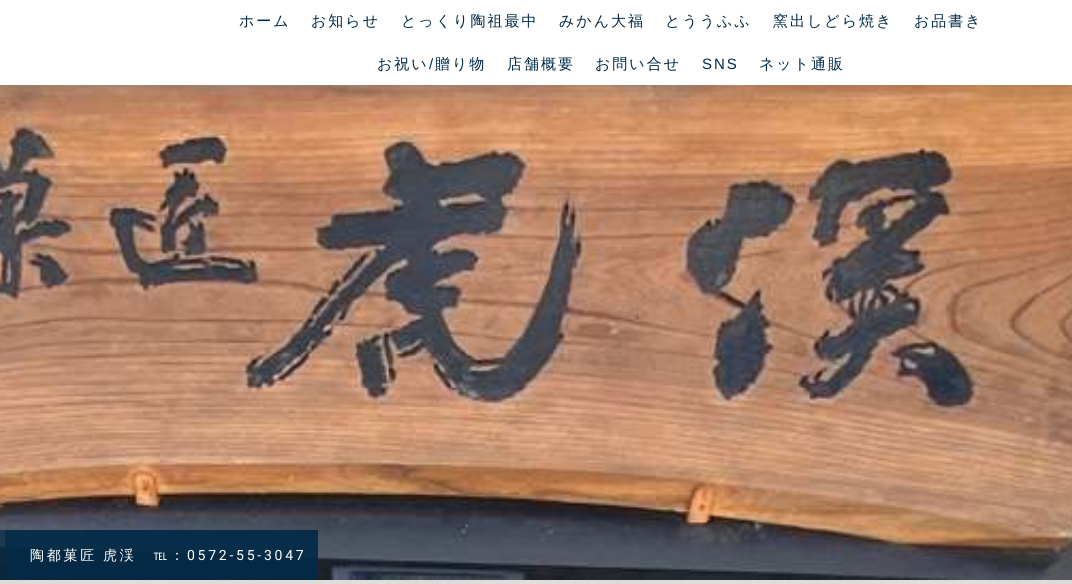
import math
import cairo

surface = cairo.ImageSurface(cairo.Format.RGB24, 1072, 584)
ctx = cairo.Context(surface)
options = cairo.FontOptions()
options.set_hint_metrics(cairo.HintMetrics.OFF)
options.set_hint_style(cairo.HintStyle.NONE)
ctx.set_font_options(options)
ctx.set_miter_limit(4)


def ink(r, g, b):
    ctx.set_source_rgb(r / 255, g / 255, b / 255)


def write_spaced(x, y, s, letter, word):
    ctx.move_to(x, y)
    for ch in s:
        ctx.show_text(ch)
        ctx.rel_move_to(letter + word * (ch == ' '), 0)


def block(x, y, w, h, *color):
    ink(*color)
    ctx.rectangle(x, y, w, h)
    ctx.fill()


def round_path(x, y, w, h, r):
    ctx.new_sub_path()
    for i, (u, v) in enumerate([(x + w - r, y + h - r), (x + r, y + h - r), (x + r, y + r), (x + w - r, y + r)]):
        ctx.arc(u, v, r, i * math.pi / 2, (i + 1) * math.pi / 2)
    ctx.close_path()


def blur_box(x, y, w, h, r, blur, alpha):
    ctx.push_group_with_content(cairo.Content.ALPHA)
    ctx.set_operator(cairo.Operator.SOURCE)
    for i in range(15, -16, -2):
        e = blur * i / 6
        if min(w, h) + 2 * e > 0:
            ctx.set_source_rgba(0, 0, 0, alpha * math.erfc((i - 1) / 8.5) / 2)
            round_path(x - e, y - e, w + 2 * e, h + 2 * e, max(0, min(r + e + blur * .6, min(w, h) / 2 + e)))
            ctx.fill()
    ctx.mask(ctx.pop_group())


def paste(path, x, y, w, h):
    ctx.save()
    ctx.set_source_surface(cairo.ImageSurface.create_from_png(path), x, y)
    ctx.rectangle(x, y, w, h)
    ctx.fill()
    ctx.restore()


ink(255, 255, 255)
ctx.paint()
paste("pic1.png", 0, 85, 1072, 495)
ink(0, 0, 0)
blur_box(0, 0, 1072, 85, 0, 15, 0.2)
block(0, 0, 1072, 85, 255, 255, 255)
ctx.select_font_face("WenQuanYi Zen Hei Medium")
ctx.set_font_size(15)
ink(2, 42, 72)
write_spaced(239, 26, "ホーム", 2, 0)
write_spaced(311, 26, "お知らせ", 2, 0)
write_spaced(401, 26, "とっくり陶祖最中", 2, 0)
write_spaced(559, 26, "みかん大福", 2, 0)
write_spaced(665, 26, "とううふふ", 2, 0)
write_spaced(773, 26, "窯出しどら焼き", 2, 0)
write_spaced(914, 26, "お品書き", 2, 0)
write_spaced(377, 69, "お祝い", 2, 0)
ctx.select_font_face("Liberation Sans")
write_spaced(429, 69, "/", 2, 0)
ctx.select_font_face("WenQuanYi Zen Hei Medium")
write_spaced(435, 69, "贈り物", 2, 0)
write_spaced(507, 69, "店舗概要", 2, 0)
write_spaced(595, 69, "お問い合せ", 2, 0)
ctx.select_font_face("Liberation Sans")
write_spaced(702, 69, "SNS", 2, 0)
ctx.select_font_face("WenQuanYi Zen Hei Medium")
write_spaced(759, 69, "ネット通販", 2, 0)
paste("pic2.png", 0, 580, 1072, 4)
ctx.set_source_rgba(0.008, 0.165, 0.282, 0.72)
ctx.rectangle(5, 530, 313, 50)
ctx.fill()
ctx.rectangle(25, 530, 293, 50)
ctx.fill()
ctx.rectangle(0, 530, 25, 50)
ctx.fill()
ctx.set_font_size(14)
ink(255, 255, 255)
write_spaced(30, 560, "陶都菓匠 虎渓　℡：", 2.75, -1)
ctx.select_font_face("Roboto")
write_spaced(187, 560, "0572-55-3047", 2.75, 0)
surface.write_to_png("screenshot.png")
